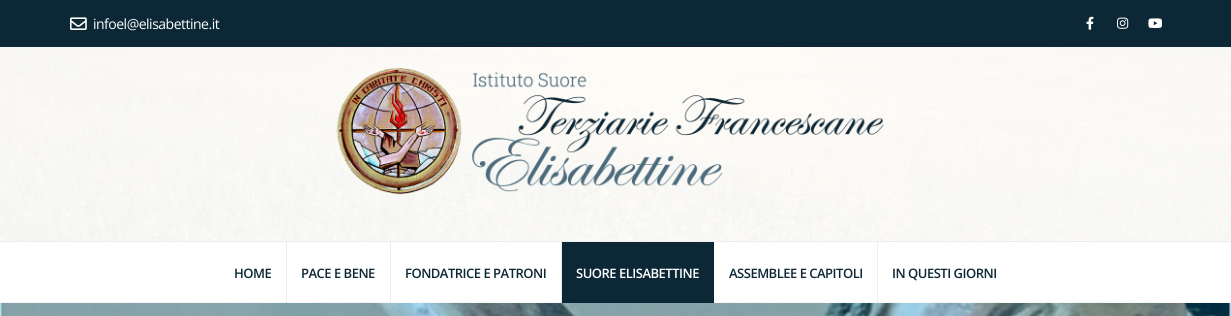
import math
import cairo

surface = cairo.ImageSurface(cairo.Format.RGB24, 1231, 316)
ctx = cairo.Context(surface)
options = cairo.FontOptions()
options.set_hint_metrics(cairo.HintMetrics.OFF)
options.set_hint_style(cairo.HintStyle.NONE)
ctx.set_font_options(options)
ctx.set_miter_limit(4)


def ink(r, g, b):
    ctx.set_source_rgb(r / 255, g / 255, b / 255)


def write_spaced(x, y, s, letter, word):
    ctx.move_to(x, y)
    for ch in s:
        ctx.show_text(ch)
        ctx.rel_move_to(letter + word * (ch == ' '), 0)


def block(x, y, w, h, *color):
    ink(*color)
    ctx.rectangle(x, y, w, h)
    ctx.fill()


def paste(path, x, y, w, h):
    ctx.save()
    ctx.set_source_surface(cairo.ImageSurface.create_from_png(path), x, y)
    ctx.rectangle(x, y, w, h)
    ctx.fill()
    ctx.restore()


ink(255, 255, 255)
ctx.paint()
paste("pic1.png", 0, 47, 1231, 256)
block(0, 0, 1231, 47, 12, 39, 54)
paste("pic2.png", 70, 17, 17, 13)
ctx.select_font_face("Open Sans")
ctx.set_font_size(14)
ink(255, 255, 255)
write_spaced(93, 29, "infoel@elisabettine.it", -0.5, 0)
paste("pic3.png", 1086, 16, 8, 14)
paste("pic4.png", 1117, 17, 12, 12)
paste("pic5.png", 1148, 18, 14, 10)
paste("pic6.png", 336, 68, 548, 127)
block(0, 242, 1231, 60, 255, 255, 255)
block(0, 241, 1231, 1, 237, 237, 237)
ctx.set_source_rgba(0, 0, 0, 0.07)
ctx.rectangle(286, 242, 1, 61)
ctx.fill()
ctx.select_font_face("Open Sans SemiBold")
ctx.set_font_size(13)
ink(12, 39, 54)
write_spaced(234, 278, "HOME", -0.5, 0)
ctx.set_source_rgba(0, 0, 0, 0.07)
ctx.rectangle(390, 242, 1, 61)
ctx.fill()
ink(12, 39, 54)
write_spaced(301, 278, "PACE E BENE", -0.5, 0)
ctx.set_source_rgba(0, 0, 0, 0.07)
ctx.rectangle(561, 242, 1, 61)
ctx.fill()
ink(12, 39, 54)
write_spaced(405, 278, "FONDATRICE E PATRONI", -0.5, 0)
block(562, 242, 151, 61, 12, 39, 54)
block(713, 242, 1, 61, 11, 36, 50)
ink(255, 255, 255)
write_spaced(576, 278, "SUORE ELISABETTINE", -0.5, 0)
ctx.set_source_rgba(0, 0, 0, 0.07)
ctx.rectangle(877, 242, 1, 61)
ctx.fill()
ink(12, 39, 54)
write_spaced(729, 278, "ASSEMBLEE E CAPITOLI", -0.5, 0)
write_spaced(892, 278, "IN QUESTI GIORNI", -0.5, 0)
paste("pic7.png", 0, 303, 1231, 13)
surface.write_to_png("screenshot.png")
